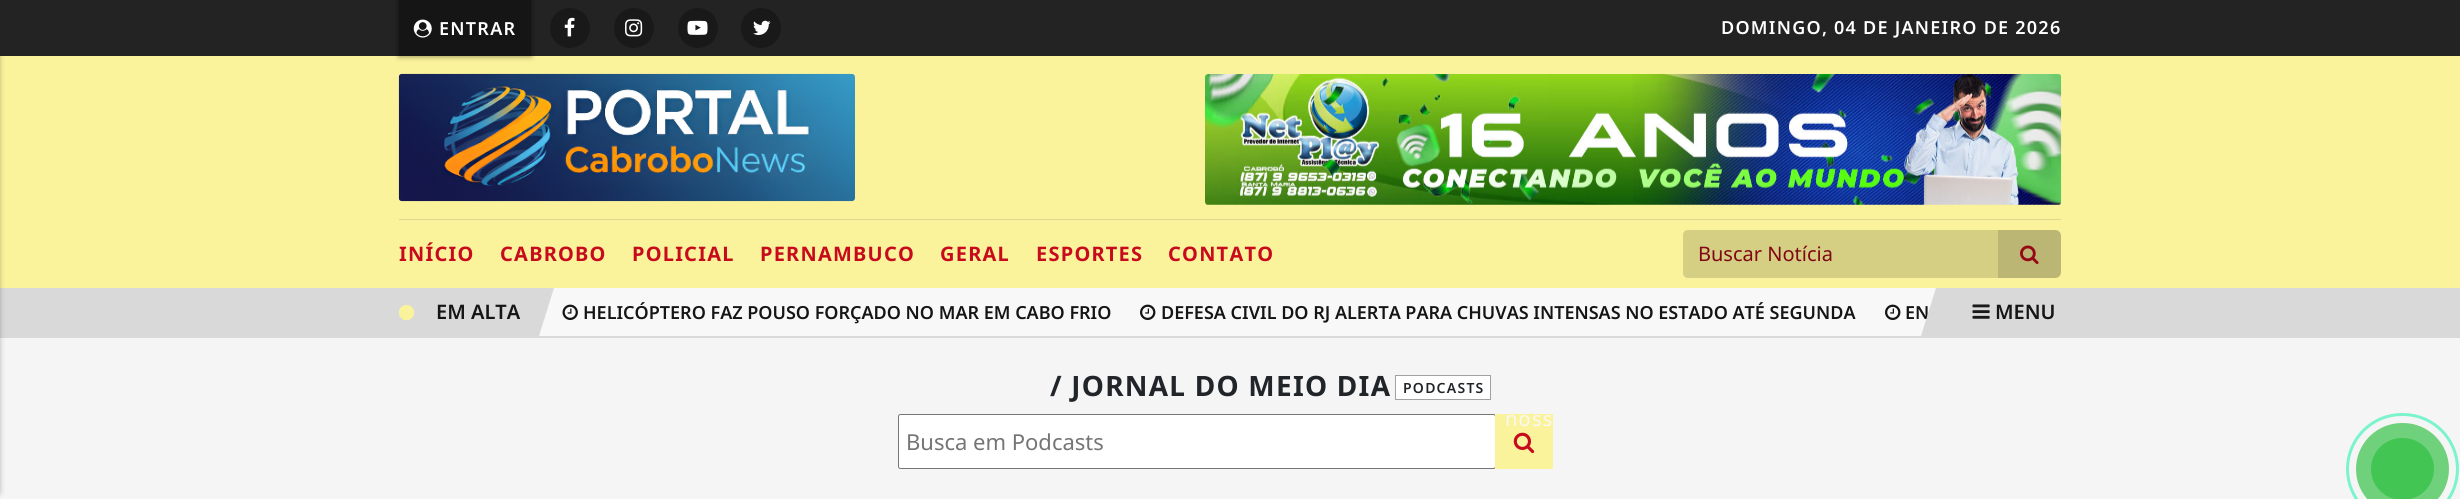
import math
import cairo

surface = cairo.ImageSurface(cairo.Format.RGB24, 2460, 499)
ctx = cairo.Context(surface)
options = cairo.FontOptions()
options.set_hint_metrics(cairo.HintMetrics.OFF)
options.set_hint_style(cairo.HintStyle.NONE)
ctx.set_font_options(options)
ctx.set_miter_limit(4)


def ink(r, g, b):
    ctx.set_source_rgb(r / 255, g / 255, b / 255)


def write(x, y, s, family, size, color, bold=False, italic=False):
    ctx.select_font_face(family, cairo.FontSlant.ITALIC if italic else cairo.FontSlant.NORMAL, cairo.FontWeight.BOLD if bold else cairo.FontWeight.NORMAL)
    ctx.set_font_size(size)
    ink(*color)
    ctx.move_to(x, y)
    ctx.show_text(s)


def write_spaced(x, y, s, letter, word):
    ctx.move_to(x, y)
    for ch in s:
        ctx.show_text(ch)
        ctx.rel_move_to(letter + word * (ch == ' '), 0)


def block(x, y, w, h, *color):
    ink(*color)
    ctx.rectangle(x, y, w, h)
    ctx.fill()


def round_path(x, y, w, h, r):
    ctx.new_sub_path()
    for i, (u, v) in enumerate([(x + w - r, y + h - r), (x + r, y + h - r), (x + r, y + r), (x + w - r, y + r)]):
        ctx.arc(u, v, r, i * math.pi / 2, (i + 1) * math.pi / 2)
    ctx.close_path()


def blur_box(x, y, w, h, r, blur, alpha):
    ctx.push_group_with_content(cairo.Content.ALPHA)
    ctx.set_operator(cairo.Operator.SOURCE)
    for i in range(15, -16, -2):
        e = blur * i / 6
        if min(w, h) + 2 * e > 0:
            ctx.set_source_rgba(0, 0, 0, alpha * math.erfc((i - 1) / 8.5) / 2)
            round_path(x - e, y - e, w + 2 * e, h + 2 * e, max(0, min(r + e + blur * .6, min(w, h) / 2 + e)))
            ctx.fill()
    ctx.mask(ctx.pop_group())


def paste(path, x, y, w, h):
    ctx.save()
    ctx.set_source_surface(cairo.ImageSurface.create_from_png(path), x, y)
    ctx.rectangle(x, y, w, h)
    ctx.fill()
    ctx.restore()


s1 = dict(family="Noto Sans", size=20, color=(128, 7, 19))
s2 = dict(family="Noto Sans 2 SemiBold", size=20, color=(21, 21, 21))
s3 = dict(family="Noto Sans SemiBold", size=18, color=(21, 21, 21))
s4 = dict(family="Noto Sans", size=22, color=(117, 117, 117))

ink(251, 243, 155)
ctx.paint()
block(0, 288, 2460, 50, 217, 217, 217)
block(0, 338, 2460, 161, 245, 245, 245)
ink(0, 0, 0)
blur_box(-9, 8, 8, 485, 0, 3, 0.35)
block(0, 0, 2460, 56, 35, 35, 35)
ink(0, 0, 0)
blur_box(399, 0, 132, 56, 0, 3, 0.5)
block(399, 0, 132, 56, 21, 21, 21)
paste("pic1.png", 413, 19, 19, 19)
ctx.select_font_face("Noto Sans 2 SemiBold")
ctx.set_font_size(18)
ink(255, 255, 255)
write_spaced(439, 35, "ENTRAR", 1.25, 0)
ink(25, 25, 25)
ctx.new_path()
ctx.arc(570, 28, 20, 0, 2 * math.pi)
ctx.fill()
paste("pic2.png", 564, 17, 11, 20)
ctx.arc(634, 28, 20, 0, 2 * math.pi)
ctx.fill()
paste("pic3.png", 625, 19, 18, 18)
ctx.arc(698, 28, 20, 0, 2 * math.pi)
ctx.fill()
paste("pic4.png", 687, 20, 21, 15)
ctx.arc(761, 28, 20, 0, 2 * math.pi)
ctx.fill()
paste("pic5.png", 753, 20, 18, 15)
ctx.select_font_face("Noto Sans SemiBold")
ink(255, 255, 255)
write_spaced(1721, 34, "DOMINGO, 04 DE JANEIRO DE 2026", 1.25, 0)
paste("pic6.png", 398, 73, 457, 129)
paste("pic7.png", 1205, 74, 857, 131)
block(399, 219, 1662, 1, 221, 215, 148)
ctx.select_font_face("Noto Sans", cairo.FontSlant.NORMAL, cairo.FontWeight.BOLD)
ctx.set_font_size(20)
ink(200, 10, 29)
write_spaced(399, 261, "INÍCIO", 1.25, 0)
write_spaced(500, 261, "CABROBO", 1.25, 0)
write_spaced(632, 261, "POLICIAL", 1.25, 0)
write_spaced(760, 261, "PERNAMBUCO", 1.25, 0)
write_spaced(940, 261, "GERAL", 1.25, 0)
write_spaced(1036, 261, "ESPORTES", 1.25, 0)
write_spaced(1168, 261, "CONTATO", 1.25, 0)
ink(213, 207, 132)
ctx.new_path()
ctx.move_to(1688, 230)
ctx.line_to(1999, 230)
ctx.line_to(1999, 278)
ctx.line_to(1688, 278)
ctx.curve_to(1685, 278, 1683, 276, 1683, 273)
ctx.line_to(1683, 235)
ctx.curve_to(1683, 232, 1685, 230, 1688, 230)
ctx.close_path()
ctx.fill()
write(1698, 261, "Buscar Notícia", **s1)
ink(188, 182, 116)
ctx.new_path()
ctx.move_to(1998, 230)
ctx.line_to(2055, 230)
ctx.curve_to(2058.5, 230, 2061, 232.5, 2061, 236)
ctx.line_to(2061, 272)
ctx.curve_to(2061, 275.5, 2058.5, 278, 2055, 278)
ctx.line_to(1998, 278)
ctx.close_path()
ctx.fill()
paste("pic8.png", 2020, 245, 19, 20)
block(539, 288, 1397, 48, 248, 248, 248)
ink(251, 243, 155)
ctx.arc(406.5, 312.5, 7, 0, 2 * math.pi)
ctx.fill_preserve()
ctx.set_line_width(1)
ctx.stroke()
ctx.arc(406.5, 312.5, 7, 0, 2 * math.pi)
ctx.stroke()
write(436, 319, "EM ALTA", **s2)
ink(217, 217, 217)
ctx.new_path()
ctx.move_to(539, 288)
ctx.line_to(554, 288)
ctx.line_to(539, 336)
ctx.close_path()
ctx.fill()
paste("pic9.png", 562, 304, 16, 16)
write(583, 319, "HELICÓPTERO FAZ POUSO FORÇADO NO MAR EM CABO FRIO", **s3)
paste("pic10.png", 1140, 304, 16, 16)
write(1161, 319, "DEFESA CIVIL DO RJ ALERTA PARA CHUVAS INTENSAS NO ESTADO ATÉ SEGUNDA", **s3)
paste("pic10.png", 1885, 304, 16, 16)
write(1905, 319, "EN", **s3)
ink(217, 217, 217)
ctx.new_path()
ctx.move_to(1936, 336)
ctx.line_to(1921, 336)
ctx.line_to(1936, 288)
ctx.close_path()
ctx.fill()
paste("pic11.png", 1972, 304, 18, 15)
write(1995, 319, "MENU", **s2)
ctx.select_font_face("Noto Sans", cairo.FontSlant.NORMAL, cairo.FontWeight.BOLD)
ctx.set_font_size(28)
ink(33, 37, 41)
write_spaced(1050, 396, "/ JORNAL DO MEIO DIA", 1.25, 0)
ink(255, 255, 255)
ctx.rectangle(1395.5, 375.5, 95, 24)
ctx.fill_preserve()
ink(161, 161, 161)
ctx.stroke()
ctx.select_font_face("Noto Sans SemiBold")
ctx.set_font_size(14)
ink(33, 37, 41)
write_spaced(1403, 393, "PODCASTS", 1.25, 0)
ink(255, 255, 255)
round_path(898.5, 414.5, 597, 54, 2)
ctx.fill_preserve()
ink(118, 118, 118)
ctx.stroke()
write(906, 450, "Busca em Podcasts", **s4)
block(1495, 414, 58, 55, 251, 243, 155)
paste("pic12.png", 1513, 432, 22, 22)
ctx.select_font_face("Noto Sans 2")
ctx.set_font_size(20)
ink(248, 248, 246)
write_spaced(1505, 426, "noss", 1.25, 0)
round_path(2347.5, 414.5, 110, 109, 54.5)
ink(123, 244, 205)
ctx.set_line_width(3)
ctx.stroke()
ink(112, 209, 124)
round_path(2356, 423, 93, 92, 46)
ctx.fill()
ink(67, 197, 84)
round_path(2371, 438, 63, 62, 31)
ctx.fill()
surface.write_to_png("screenshot.png")
